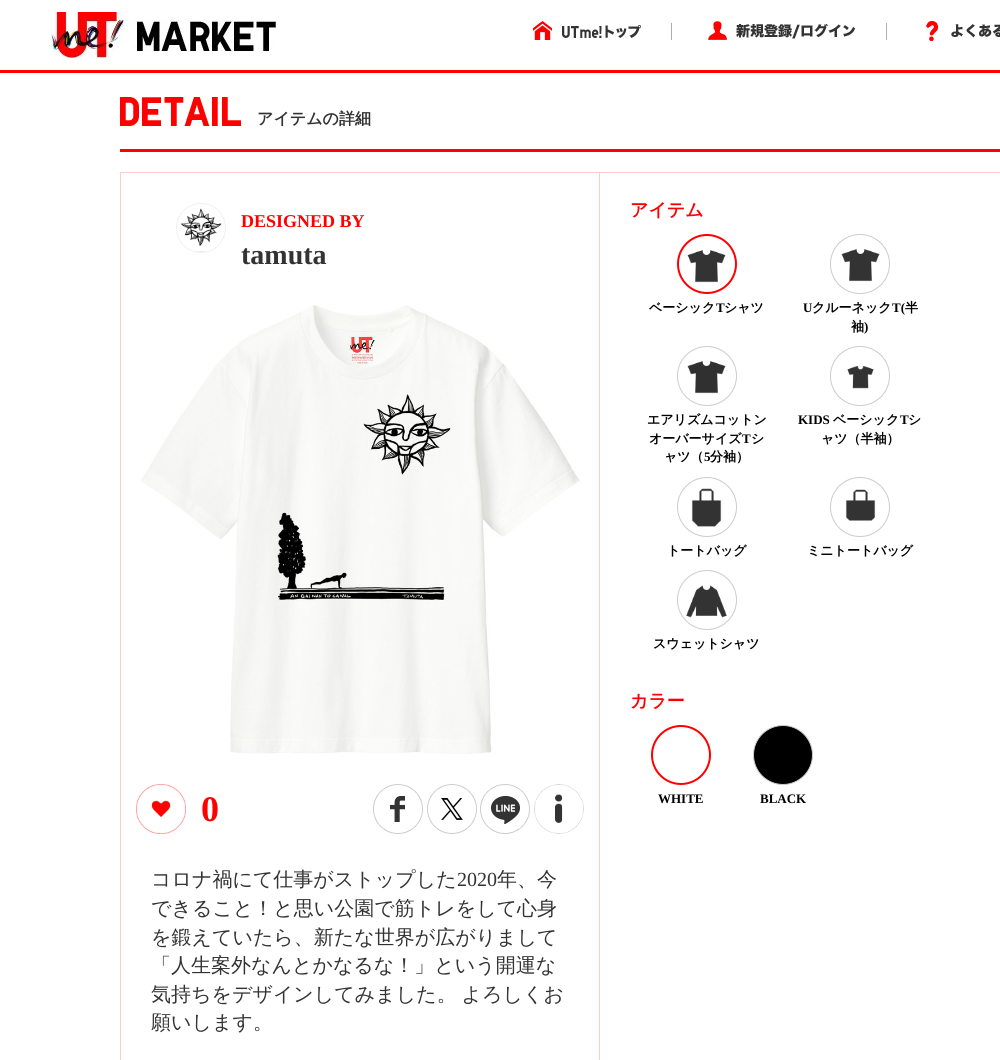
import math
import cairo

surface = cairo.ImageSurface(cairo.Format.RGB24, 1000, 1060)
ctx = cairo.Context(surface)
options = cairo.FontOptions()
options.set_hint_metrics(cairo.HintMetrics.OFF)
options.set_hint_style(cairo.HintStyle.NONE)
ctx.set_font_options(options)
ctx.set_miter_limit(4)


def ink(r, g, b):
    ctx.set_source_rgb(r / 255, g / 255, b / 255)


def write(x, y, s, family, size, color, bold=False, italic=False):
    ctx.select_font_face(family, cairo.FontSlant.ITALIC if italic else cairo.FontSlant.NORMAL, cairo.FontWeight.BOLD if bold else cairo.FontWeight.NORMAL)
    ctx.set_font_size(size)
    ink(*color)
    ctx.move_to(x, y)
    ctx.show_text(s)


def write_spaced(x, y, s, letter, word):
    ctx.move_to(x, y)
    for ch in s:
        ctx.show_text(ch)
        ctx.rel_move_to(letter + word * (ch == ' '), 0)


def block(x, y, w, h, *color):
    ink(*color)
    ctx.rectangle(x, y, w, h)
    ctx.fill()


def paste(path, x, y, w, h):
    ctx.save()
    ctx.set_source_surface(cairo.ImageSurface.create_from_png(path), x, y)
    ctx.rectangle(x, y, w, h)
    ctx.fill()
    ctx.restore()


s1 = dict(family="WenQuanYi Zen Hei", size=16, color=(51, 51, 51), bold=True)
s2 = dict(family="Liberation Serif", size=18, color=(255, 0, 0), bold=True)
s3 = dict(family="Liberation Serif", size=28, color=(51, 51, 51), bold=True)
s4 = dict(family="Liberation Serif", size=36, color=(255, 0, 0), bold=True)
s5 = dict(family="WenQuanYi Zen Hei Medium", size=20, color=(51, 51, 51))
s6 = dict(family="Liberation Serif", size=20, color=(51, 51, 51))
s7 = dict(family="WenQuanYi Zen Hei", size=18, color=(255, 0, 0), bold=True)
s8 = dict(family="WenQuanYi Zen Hei", size=13, color=(0, 0, 0), bold=True)
s9 = dict(family="Liberation Serif", size=13, color=(0, 0, 0), bold=True)

ink(255, 255, 255)
ctx.paint()
paste("pic1.png", 50, 12, 227, 46)
paste("pic2.png", 533, 21, 19, 19)
paste("pic3.png", 562, 25, 79, 13)
block(671, 23, 1, 17, 174, 174, 174)
paste("pic4.png", 708, 21, 19, 19)
paste("pic5.png", 736, 24, 120, 15)
block(886, 23, 1, 17, 174, 174, 174)
paste("pic6.png", 926, 21, 12, 20)
paste("pic7.png", 951, 24, 49, 14)
block(0, 70, 1000, 3, 255, 0, 0)
paste("pic8.png", 120, 97, 121, 29)
write(257, 124, "アイテムの詳細", **s1)
block(120, 149, 880, 3, 255, 0, 0)
ctx.rectangle(120.5, 172.5, 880, 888)
ink(255, 204, 204)
ctx.set_line_width(1)
ctx.stroke()
block(599, 173, 1, 887, 255, 204, 204)
ctx.arc(201, 228, 24.5, 0, 2 * math.pi)
ink(239, 239, 239)
ctx.stroke()
paste("pic9.png", 180, 205, 42, 47)
write(241, 227, "DESIGNED BY", **s2)
write(241, 264, "tamuta", **s3)
paste("pic10.png", 141, 305, 439, 449)
paste("pic11.png", 136, 784, 50, 50)
write(201, 821, "0", **s4)
paste("pic12.png", 373, 784, 50, 50)
paste("pic13.png", 427, 784, 50, 50)
paste("pic14.png", 480, 784, 50, 50)
paste("pic15.png", 534, 784, 50, 50)
write(151, 886, "コロナ禍にて仕事がストップした", **s5)
write(457, 886, "2020", **s6)
write(497, 886, "年、今", **s5)
write(151, 915, "できること！と思い公園で筋トレをして心身", **s5)
write(151, 944, "を鍛えていたら、新たな世界が広がりまして", **s5)
write(151, 972, "「人生案外なんとかなるな！」という開運な", **s5)
write_spaced(151, 1001, "気持ちをデザインしてみました。 よろしくお", 0, -1)
write(151, 1029, "願いします。", **s5)
write(630, 216, "アイテム", **s7)
ctx.new_path()
ctx.arc(707, 264, 29, 0, 2 * math.pi)
ctx.set_line_width(2)
ctx.stroke()
paste("pic16.png", 687, 250, 39, 33)
write(649, 312, "ベーシック", **s8)
write(716, 312, "T", **s9)
write(724, 312, "シャツ", **s8)
ctx.new_path()
ctx.arc(860, 264, 29.5, 0, 2 * math.pi)
ink(204, 204, 204)
ctx.set_line_width(1)
ctx.stroke()
paste("pic16.png", 841, 249, 39, 33)
write(803, 312, "U", **s9)
write(812, 312, "クルーネック", **s8)
write(892, 312, "T(", **s9)
write(905, 312, "半", **s8)
write(851, 331, "袖", **s8)
write(864, 331, ")", **s9)
ctx.new_path()
ctx.arc(707, 376, 29.5, 0, 2 * math.pi)
ink(204, 204, 204)
ctx.stroke()
paste("pic17.png", 687, 361, 39, 33)
write(647, 424, "エアリズムコットン", **s8)
write(649, 443, "オーバーサイズ", **s8)
write(742, 443, "T", **s9)
write(751, 443, "シ", **s8)
write(664, 461, "ャツ（", **s8)
write(704, 461, "5", **s9)
write(710, 461, "分袖）", **s8)
ctx.new_path()
ctx.arc(860, 376, 29.5, 0, 2 * math.pi)
ink(204, 204, 204)
ctx.stroke()
paste("pic18.png", 847, 365, 27, 24)
write(798, 424, "KIDS", **s9)
write(833, 424, "ベーシック", **s8)
write(900, 424, "T", **s9)
write(908, 424, "シ", **s8)
write(821, 443, "ャツ（半袖）", **s8)
ctx.new_path()
ctx.arc(707, 507, 29.5, 0, 2 * math.pi)
ink(204, 204, 204)
ctx.stroke()
paste("pic19.png", 691, 488, 31, 39)
write(667, 555, "トートバッグ", **s8)
ctx.new_path()
ctx.arc(860, 507, 29.5, 0, 2 * math.pi)
ink(204, 204, 204)
ctx.stroke()
paste("pic20.png", 845, 489, 31, 32)
write(807, 555, "ミニトートバッグ", **s8)
ctx.new_path()
ctx.arc(707, 600, 29.5, 0, 2 * math.pi)
ink(204, 204, 204)
ctx.stroke()
paste("pic21.png", 686, 585, 41, 33)
write(653, 648, "スウェットシャツ", **s8)
write(630, 707, "カラー", **s7)
ctx.new_path()
ctx.arc(681, 755, 29, 0, 2 * math.pi)
ctx.set_line_width(2)
ctx.stroke()
write(658, 803, "WHITE", **s9)
ctx.new_path()
ctx.arc(783, 755, 29.5, 0, 2 * math.pi)
ctx.fill_preserve()
ink(204, 204, 204)
ctx.set_line_width(1)
ctx.stroke()
write(760, 803, "BLACK", **s9)
surface.write_to_png("screenshot.png")
